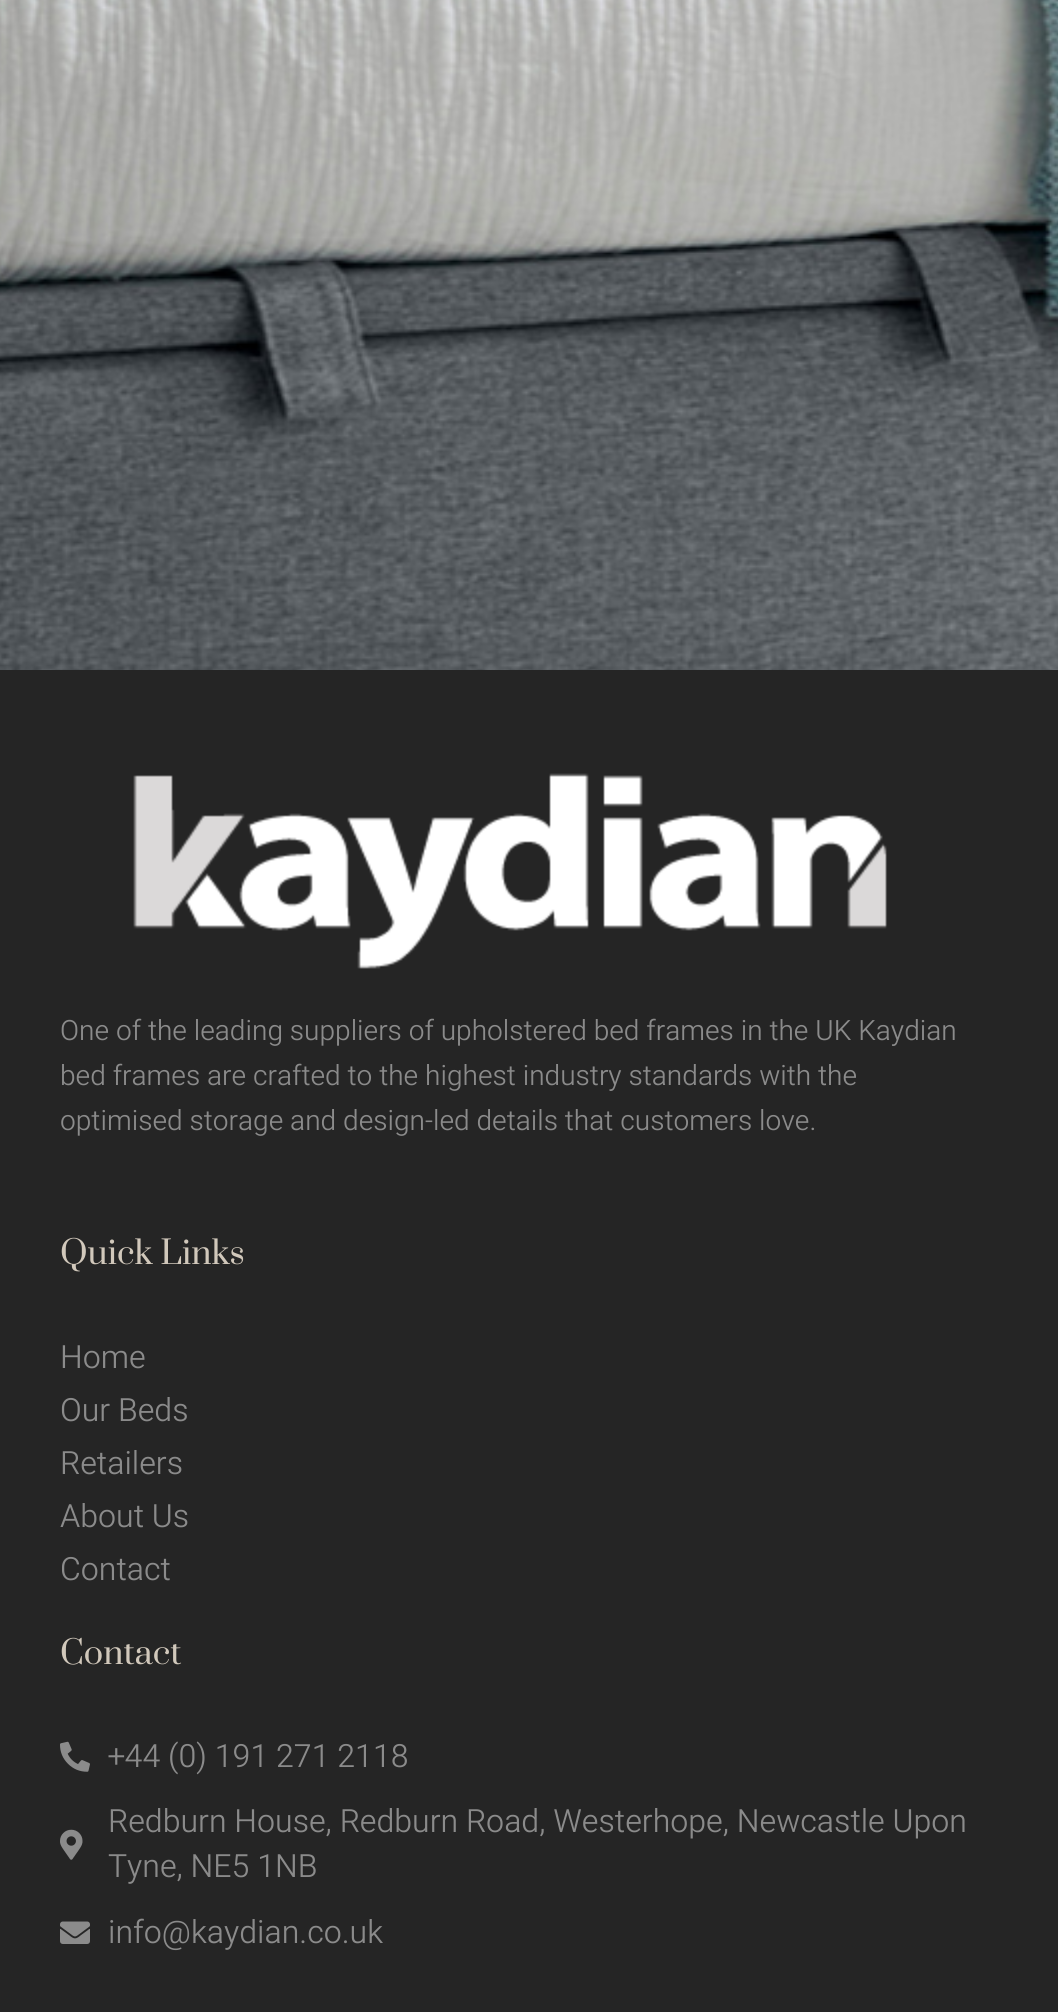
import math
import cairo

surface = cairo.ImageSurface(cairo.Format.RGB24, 1058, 2012)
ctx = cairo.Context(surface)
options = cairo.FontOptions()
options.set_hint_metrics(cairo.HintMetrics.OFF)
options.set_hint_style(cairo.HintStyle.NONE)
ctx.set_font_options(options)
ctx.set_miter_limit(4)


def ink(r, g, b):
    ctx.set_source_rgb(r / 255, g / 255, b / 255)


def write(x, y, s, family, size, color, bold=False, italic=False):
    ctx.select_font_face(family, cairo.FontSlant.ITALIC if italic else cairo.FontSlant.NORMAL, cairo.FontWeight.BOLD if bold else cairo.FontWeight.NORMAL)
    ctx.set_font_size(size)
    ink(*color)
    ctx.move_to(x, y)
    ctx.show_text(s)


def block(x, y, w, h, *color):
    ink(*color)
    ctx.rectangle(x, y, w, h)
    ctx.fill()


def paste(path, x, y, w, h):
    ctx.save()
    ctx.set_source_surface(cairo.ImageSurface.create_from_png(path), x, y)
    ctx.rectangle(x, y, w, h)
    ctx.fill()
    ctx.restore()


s1 = dict(family="Heebo Light", size=28, color=(139, 139, 139))
s2 = dict(family="Prata", size=32, color=(209, 200, 187))
s3 = dict(family="Heebo Light", size=32, color=(139, 139, 139))

ink(255, 255, 255)
ctx.paint()
paste("pic1.png", 0, 0, 1058, 670)
block(0, 670, 1058, 1342, 37, 37, 37)
paste("pic2.png", 133, 773, 754, 196)
write(60, 1040, "One of the leading suppliers of upholstered bed frames in the UK Kaydian", **s1)
write(60, 1085, "bed frames are crafted to the highest industry standards with the", **s1)
write(60, 1130, "optimised storage and design-led details that customers love.", **s1)
write(60, 1264, "Quick Links", **s2)
write(60, 1368, "Home", **s3)
write(60, 1421, "Our Beds", **s3)
write(60, 1474, "Retailers", **s3)
write(60, 1527, "About Us", **s3)
write(60, 1580, "Contact", **s3)
write(60, 1664, "Contact", **s2)
paste("pic3.png", 60, 1741, 30, 31)
write(108, 1767, "+44 (0) 191 271 2118", **s3)
paste("pic4.png", 60, 1829, 23, 31)
write(108, 1832, "Redburn House, Redburn Road, Westerhope, Newcastle Upon", **s3)
write(108, 1877, "Tyne, NE5 1NB", **s3)
paste("pic5.png", 60, 1921, 30, 23)
write(108, 1943, "info@kaydian.co.uk", **s3)
surface.write_to_png("screenshot.png")
